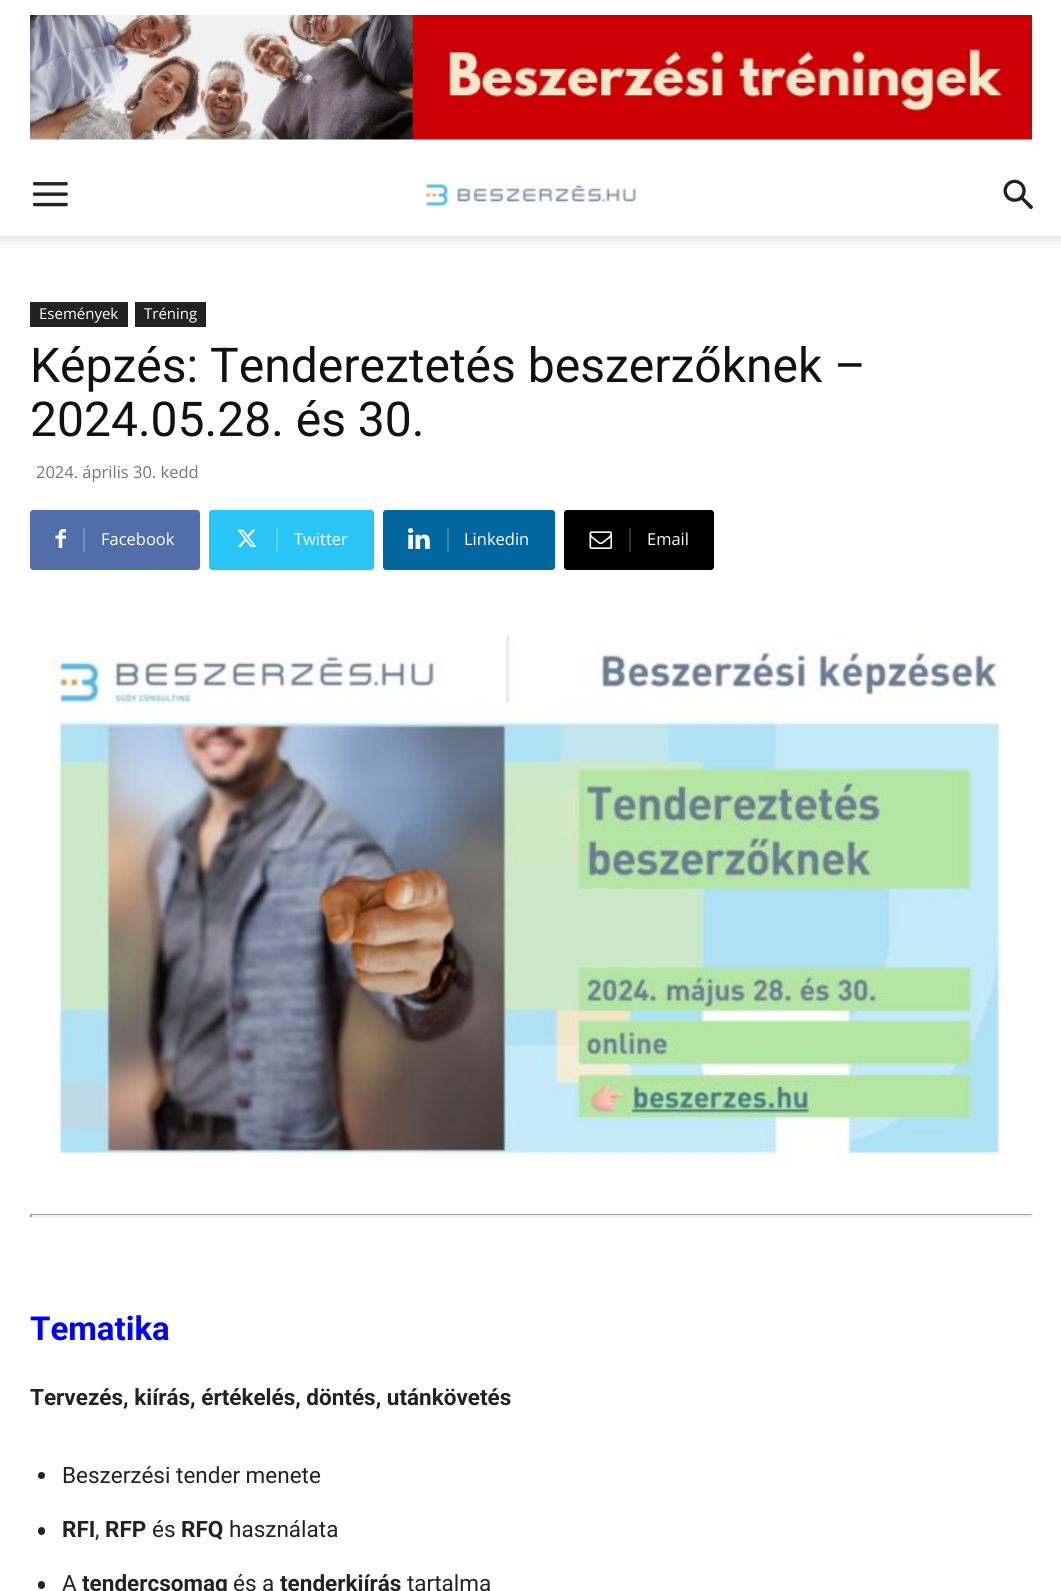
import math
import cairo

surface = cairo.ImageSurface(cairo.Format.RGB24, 1061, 1591)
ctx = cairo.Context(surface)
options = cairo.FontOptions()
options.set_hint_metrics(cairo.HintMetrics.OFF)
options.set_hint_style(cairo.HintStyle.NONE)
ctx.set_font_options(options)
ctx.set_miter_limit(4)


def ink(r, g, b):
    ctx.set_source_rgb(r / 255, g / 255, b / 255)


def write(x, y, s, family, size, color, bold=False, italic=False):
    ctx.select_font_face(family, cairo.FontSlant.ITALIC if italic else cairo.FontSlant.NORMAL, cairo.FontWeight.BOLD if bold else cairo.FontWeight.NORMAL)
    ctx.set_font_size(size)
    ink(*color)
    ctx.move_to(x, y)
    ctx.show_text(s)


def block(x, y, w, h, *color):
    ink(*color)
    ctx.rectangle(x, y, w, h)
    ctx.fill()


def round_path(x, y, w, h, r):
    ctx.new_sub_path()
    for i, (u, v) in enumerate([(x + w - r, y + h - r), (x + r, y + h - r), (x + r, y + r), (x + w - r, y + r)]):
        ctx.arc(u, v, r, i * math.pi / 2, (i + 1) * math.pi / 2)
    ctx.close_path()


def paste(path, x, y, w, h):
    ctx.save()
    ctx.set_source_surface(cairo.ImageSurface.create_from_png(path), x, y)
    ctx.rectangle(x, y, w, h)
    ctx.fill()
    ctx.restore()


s1 = dict(family="Open Sans", size=15, color=(255, 255, 255))
s2 = dict(family="Roboto", size=48, color=(17, 17, 17))
s3 = dict(family="Open Sans", size=16.5, color=(118, 118, 118))
s4 = dict(family="Open Sans", size=16.5, color=(255, 255, 255))
s5 = dict(family="Roboto", size=33, color=(0, 0, 255), bold=True)
s6 = dict(family="Roboto", size=22.5, color=(34, 34, 34), bold=True)
s7 = dict(family="Roboto", size=22.5, color=(34, 34, 34))

ink(255, 255, 255)
ctx.paint()
paste("pic1.png", 30, 15, 1002, 125)
paste("pic2.png", 33, 182, 35, 25)
paste("pic3.png", 426, 184, 210, 23)
paste("pic4.png", 1003, 179, 30, 30)
paste("pic5.png", 0, 236, 1061, 12)
block(30, 302, 98, 25, 34, 34, 34)
write(39, 319, "Események", **s1)
block(135, 302, 71, 25, 34, 34, 34)
write(144, 319, "Tréning", **s1)
write(30, 382, "Képzés: Tendereztetés beszerzőknek –", **s2)
write(30, 436, "2024.05.28. és 30.", **s2)
write(36, 478, "2024. április 30. kedd", **s3)
ink(81, 110, 171)
ctx.new_path()
ctx.move_to(83, 510)
ctx.line_to(197, 510)
ctx.curve_to(198.5, 510, 200, 511.5, 200, 513)
ctx.line_to(200, 567)
ctx.curve_to(200, 568.5, 198.5, 570, 197, 570)
ctx.line_to(83, 570)
ctx.close_path()
ctx.fill()
ctx.new_path()
ctx.move_to(33, 510)
ctx.line_to(92, 510)
ctx.line_to(92, 570)
ctx.line_to(33, 570)
ctx.curve_to(31.5, 570, 30, 568.5, 30, 567)
ctx.line_to(30, 513)
ctx.curve_to(30, 511.5, 31.5, 510, 33, 510)
ctx.close_path()
ctx.fill()
paste("pic6.png", 55, 529, 11, 19)
block(83, 528, 2, 24, 116, 139, 188)
write(101, 545, "Facebook", **s4)
ink(41, 197, 246)
ctx.new_path()
ctx.move_to(276, 510)
ctx.line_to(371, 510)
ctx.curve_to(372.5, 510, 374, 511.5, 374, 513)
ctx.line_to(374, 567)
ctx.curve_to(374, 568.5, 372.5, 570, 371, 570)
ctx.line_to(276, 570)
ctx.close_path()
ctx.fill()
ctx.new_path()
ctx.move_to(212, 510)
ctx.line_to(285, 510)
ctx.line_to(285, 570)
ctx.line_to(212, 570)
ctx.curve_to(210.5, 570, 209, 568.5, 209, 567)
ctx.line_to(209, 513)
ctx.curve_to(209, 511.5, 210.5, 510, 212, 510)
ctx.close_path()
ctx.fill()
paste("pic7.png", 237, 529, 20, 18)
block(276, 528, 2, 24, 84, 209, 248)
write(294, 545, "Twitter", **s4)
ink(2, 102, 160)
ctx.new_path()
ctx.move_to(447, 510)
ctx.line_to(552, 510)
ctx.curve_to(553.5, 510, 555, 511.5, 555, 513)
ctx.line_to(555, 567)
ctx.curve_to(555, 568.5, 553.5, 570, 552, 570)
ctx.line_to(447, 570)
ctx.close_path()
ctx.fill()
ctx.new_path()
ctx.move_to(386, 510)
ctx.line_to(456, 510)
ctx.line_to(456, 570)
ctx.line_to(386, 570)
ctx.curve_to(384.5, 570, 383, 568.5, 383, 567)
ctx.line_to(383, 513)
ctx.curve_to(383, 511.5, 384.5, 510, 386, 510)
ctx.close_path()
ctx.fill()
paste("pic8.png", 408, 528, 22, 21)
block(447, 528, 2, 24, 53, 133, 179)
write(464, 545, "Linkedin", **s4)
ink(0, 0, 0)
ctx.new_path()
ctx.move_to(629, 510)
ctx.line_to(711, 510)
ctx.curve_to(712.5, 510, 714, 511.5, 714, 513)
ctx.line_to(714, 567)
ctx.curve_to(714, 568.5, 712.5, 570, 711, 570)
ctx.line_to(629, 570)
ctx.close_path()
ctx.fill()
ctx.new_path()
ctx.move_to(567, 510)
ctx.line_to(638, 510)
ctx.line_to(638, 570)
ctx.line_to(567, 570)
ctx.curve_to(565.5, 570, 564, 568.5, 564, 567)
ctx.line_to(564, 513)
ctx.curve_to(564, 511.5, 565.5, 510, 567, 510)
ctx.close_path()
ctx.fill()
paste("pic9.png", 589, 531, 23, 18)
block(629, 528, 2, 24, 51, 51, 51)
write(647, 545, "Email", **s4)
paste("pic10.png", 52, 634, 954, 529)
block(30, 1214, 1002, 1, 159, 159, 159)
block(1031, 1214, 2, 3, 238, 238, 238)
block(30, 1215, 1002, 2, 238, 238, 238)
block(30, 1214, 2, 3, 159, 159, 159)
write(30, 1340, "Tematika", **s5)
write(30, 1405, "Tervezés, kiírás, értékelés, döntés, utánkövetés", **s6)
ctx.new_path()
ctx.arc(41.5, 1475.5, 3.5, 0, 2 * math.pi)
ctx.fill()
write(62, 1483, "Beszerzési tender menete", **s7)
round_path(38, 1527, 7, 8, 3.5)
ctx.fill()
write(62, 1537, "RFI", **s6)
write(105, 1537, "RFP", **s6)
write(152, 1537, "és", **s7)
write(181, 1537, "RFQ", **s6)
write(229, 1537, "használata", **s7)
write(95, 1537, ",", **s7)
round_path(38, 1581, 7, 8, 3.5)
ctx.fill()
write(62, 1591, "A", **s7)
write(82, 1591, "tendercsomag", **s6)
write(233, 1591, "és a", **s7)
write(280, 1591, "tenderkiírás", **s6)
write(407, 1591, "tartalma", **s7)
surface.write_to_png("screenshot.png")
